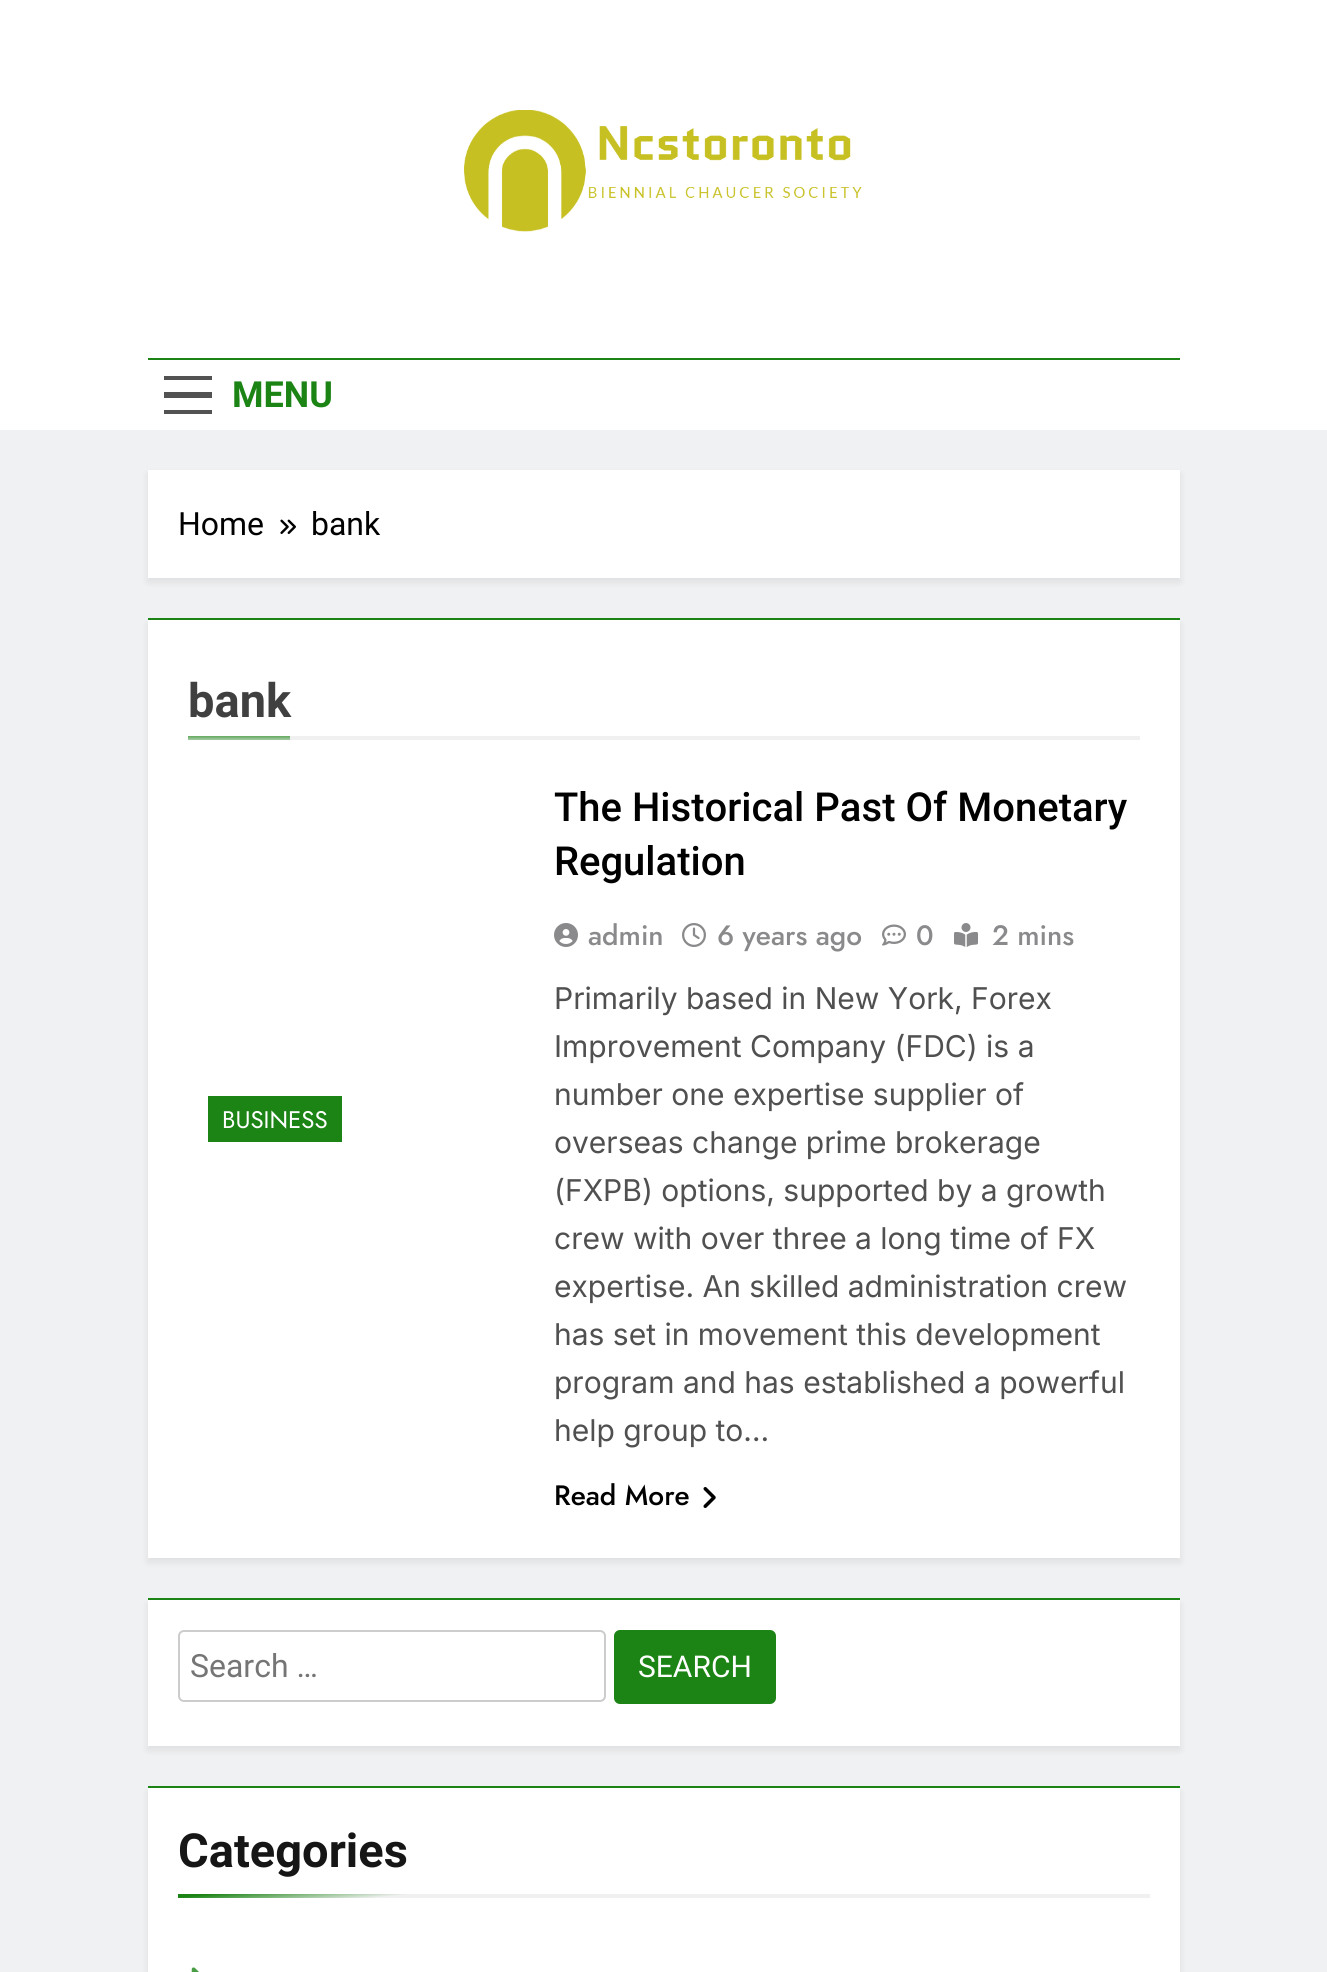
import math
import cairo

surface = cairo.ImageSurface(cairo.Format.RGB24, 1327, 1972)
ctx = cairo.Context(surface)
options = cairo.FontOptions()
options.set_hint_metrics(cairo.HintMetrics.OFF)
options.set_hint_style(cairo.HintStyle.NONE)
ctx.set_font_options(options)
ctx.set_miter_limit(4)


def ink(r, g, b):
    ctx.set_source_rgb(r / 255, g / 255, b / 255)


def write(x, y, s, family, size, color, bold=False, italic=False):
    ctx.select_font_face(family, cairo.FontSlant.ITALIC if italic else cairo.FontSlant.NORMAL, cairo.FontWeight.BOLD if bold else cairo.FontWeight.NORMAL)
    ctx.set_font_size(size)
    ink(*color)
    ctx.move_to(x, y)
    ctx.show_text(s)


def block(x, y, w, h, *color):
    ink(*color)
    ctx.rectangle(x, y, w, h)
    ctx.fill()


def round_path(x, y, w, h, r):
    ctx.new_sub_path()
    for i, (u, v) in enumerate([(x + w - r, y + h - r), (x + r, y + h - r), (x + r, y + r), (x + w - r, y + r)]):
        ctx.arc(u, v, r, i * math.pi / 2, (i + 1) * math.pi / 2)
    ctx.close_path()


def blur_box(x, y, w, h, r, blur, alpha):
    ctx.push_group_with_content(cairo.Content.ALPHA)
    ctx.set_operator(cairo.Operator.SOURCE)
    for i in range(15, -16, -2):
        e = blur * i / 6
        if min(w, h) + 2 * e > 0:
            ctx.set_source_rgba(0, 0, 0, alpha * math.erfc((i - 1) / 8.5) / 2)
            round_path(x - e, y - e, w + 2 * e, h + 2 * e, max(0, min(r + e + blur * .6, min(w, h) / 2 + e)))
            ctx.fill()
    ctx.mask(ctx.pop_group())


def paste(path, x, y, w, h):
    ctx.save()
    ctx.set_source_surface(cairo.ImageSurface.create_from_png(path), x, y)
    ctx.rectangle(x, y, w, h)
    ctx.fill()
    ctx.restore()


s1 = dict(family="Roboto", size=36, color=(27, 132, 21), bold=True)
s2 = dict(family="Roboto", size=32, color=(0, 0, 0))
s3 = dict(family="Roboto", size=47, color=(64, 64, 64), bold=True)
s4 = dict(family="Jost", size=24, color=(255, 255, 255))
s5 = dict(family="Roboto Medium", size=40, color=(0, 0, 0))
s6 = dict(family="Jost Medium", size=28, color=(138, 138, 140))
s7 = dict(family="Inter", size=30, color=(80, 80, 80))
s8 = dict(family="Jost Medium", size=28, color=(0, 0, 0))
s9 = dict(family="Roboto", size=32, color=(117, 117, 117))
s10 = dict(family="Roboto", size=30, color=(255, 255, 255))
s11 = dict(family="Roboto", size=47, color=(22, 22, 22), bold=True)

ink(240, 241, 242)
ctx.paint()
block(0, 0, 1327, 430, 255, 255, 255)
paste("pic1.png", 464, 110, 398, 122)
block(148, 358, 1032, 2, 27, 132, 21)
block(164, 376, 48, 4, 82, 82, 82)
block(164, 392, 48, 6, 82, 82, 82)
block(164, 410, 48, 4, 82, 82, 82)
write(232, 407, "MENU", **s1)
ink(0, 0, 0)
blur_box(148, 474, 1032, 108, 0, 4, 0.08)
block(148, 470, 1032, 108, 255, 255, 255)
write(178, 535, "Home", **s2)
paste("pic2.png", 280, 519, 16, 15)
write(311, 535, "bank", **s2)
ink(0, 0, 0)
blur_box(148, 624, 1032, 938, 0, 4, 0.08)
block(148, 620, 1032, 938, 255, 255, 255)
block(148, 618, 1032, 2, 27, 132, 21)
block(290, 736, 850, 4, 240, 240, 240)
write(188, 717, "bank", **s3)
gradient = cairo.LinearGradient(239, 732, 239, 744)
gradient.add_color_stop_rgba(0, 0.106, 0.518, 0.082, 1)
gradient.add_color_stop_rgba(1, 0.941, 0.941, 0.941, 1)
ctx.set_source(gradient)
ctx.rectangle(188, 736, 102, 4)
ctx.fill()
block(208, 1096, 134, 46, 27, 132, 21)
write(222, 1128, "BUSINESS", **s4)
write(554, 821, "The Historical Past Of Monetary", **s5)
write(554, 875, "Regulation", **s5)
paste("pic3.png", 554, 923, 24, 24)
write(588, 945, "admin", **s6)
paste("pic4.png", 682, 923, 24, 24)
write(717, 945, "6 years ago", **s6)
paste("pic5.png", 882, 924, 24, 22)
write(916, 945, "0", **s6)
paste("pic6.png", 954, 923, 24, 24)
write(992, 945, "2 mins", **s6)
write(554, 1009, "Primarily based in New York, Forex", **s7)
write(554, 1057, "Improvement Company (FDC) is a", **s7)
write(554, 1105, "number one expertise supplier of", **s7)
write(554, 1153, "overseas change prime brokerage", **s7)
write(554, 1201, "(FXPB) options, supported by a growth", **s7)
write(554, 1249, "crew with over three a long time of FX", **s7)
write(554, 1297, "expertise. An skilled administration crew", **s7)
write(554, 1345, "has set in movement this development", **s7)
write(554, 1393, "program and has established a powerful", **s7)
write(554, 1441, "help group to…", **s7)
write(554, 1505, "Read More", **s8)
paste("pic7.png", 703, 1487, 13, 21)
ink(0, 0, 0)
blur_box(148, 1604, 1032, 146, 0, 4, 0.08)
block(148, 1600, 1032, 146, 255, 255, 255)
block(148, 1598, 1032, 2, 27, 132, 21)
round_path(179, 1631, 426, 70, 5)
ink(204, 204, 204)
ctx.stroke()
write(190, 1677, "Search …", **s9)
ink(27, 132, 21)
round_path(614, 1630, 162, 74, 6)
ctx.fill()
write(638, 1677, "SEARCH", **s10)
ink(0, 0, 0)
blur_box(148, 1792, 1032, 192, 0, 4, 0.08)
block(148, 1788, 1032, 184, 255, 255, 255)
block(148, 1786, 1032, 2, 27, 132, 21)
block(406, 1894, 744, 4, 240, 240, 240)
write(178, 1867, "Categories", **s11)
gradient = cairo.LinearGradient(291, 1886, 293, 1906)
gradient.add_color_stop_rgba(0, 0.106, 0.518, 0.082, 1)
gradient.add_color_stop_rgba(1, 0.941, 0.941, 0.941, 1)
ctx.set_source(gradient)
ctx.rectangle(178, 1894, 228, 4)
ctx.fill()
paste("pic8.png", 191, 1967, 8, 5)
surface.write_to_png("screenshot.png")
